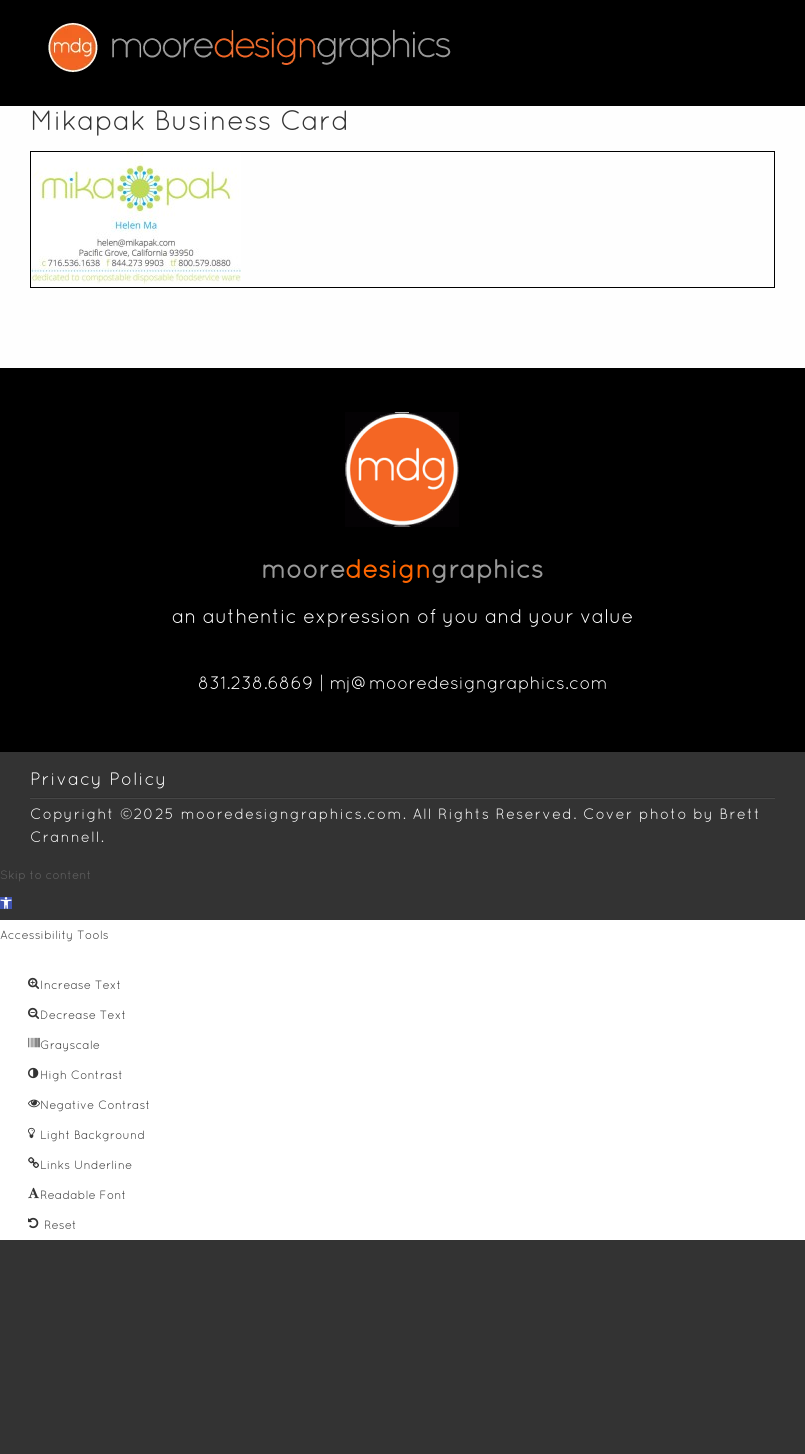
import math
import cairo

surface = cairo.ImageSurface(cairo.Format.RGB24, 805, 1454)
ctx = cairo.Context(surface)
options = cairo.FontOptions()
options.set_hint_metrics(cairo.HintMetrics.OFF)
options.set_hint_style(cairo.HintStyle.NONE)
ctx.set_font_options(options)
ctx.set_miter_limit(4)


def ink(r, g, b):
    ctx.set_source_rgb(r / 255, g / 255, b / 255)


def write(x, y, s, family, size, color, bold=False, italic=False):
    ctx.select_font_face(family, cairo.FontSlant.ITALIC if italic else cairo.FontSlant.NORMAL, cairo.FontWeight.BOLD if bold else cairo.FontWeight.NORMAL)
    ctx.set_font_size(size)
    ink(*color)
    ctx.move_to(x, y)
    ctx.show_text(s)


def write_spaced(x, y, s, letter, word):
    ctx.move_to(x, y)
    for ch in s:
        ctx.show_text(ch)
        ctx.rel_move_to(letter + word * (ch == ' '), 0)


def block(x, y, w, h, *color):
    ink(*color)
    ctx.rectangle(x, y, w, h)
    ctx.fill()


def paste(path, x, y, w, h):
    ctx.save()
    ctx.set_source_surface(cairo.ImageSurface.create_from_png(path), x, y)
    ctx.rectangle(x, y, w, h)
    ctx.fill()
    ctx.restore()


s1 = dict(family="Quicksand", size=28, color=(51, 51, 51))
s2 = dict(family="Quicksand", size=26, color=(153, 153, 153), bold=True)
s3 = dict(family="Quicksand", size=26, color=(255, 102, 0), bold=True)
s4 = dict(family="Quicksand", size=20, color=(255, 255, 255))
s5 = dict(family="Quicksand", size=18, color=(255, 255, 255))
s6 = dict(family="Quicksand", size=12, color=(102, 102, 102))
s7 = dict(family="Quicksand", size=12, color=(51, 51, 51))

ink(51, 51, 51)
ctx.paint()
block(0, 0, 805, 106, 0, 0, 0)
paste("pic1.png", 48, 22, 403, 51)
block(0, 106, 805, 262, 254, 254, 254)
write(30, 130, "Mikapak Business Card", **s1)
ctx.rectangle(30.5, 151.5, 744, 136)
ink(0, 0, 0)
ctx.set_line_width(1)
ctx.stroke()
paste("pic2.png", 31, 152, 210, 133)
block(0, 368, 805, 384, 0, 0, 0)
paste("pic3.png", 345, 412, 114, 115)
write(261, 578, "moore", **s2)
write(345, 578, "design", **s3)
write(431, 578, "graphics", **s2)
write(172, 623, "an authentic expression of you and your value", **s4)
write(198, 689, "831.238.6869 | mj@mooredesigngraphics.com", **s5)
block(30, 798, 745, 1, 71, 71, 71)
ink(255, 255, 255)
write_spaced(30, 785, "Privacy Policy", 1, 0)
block(30, 797, 745, 1, 46, 46, 46)
ctx.set_font_size(15)
ink(255, 255, 255)
write_spaced(30, 819, "Copyright ©2025 mooredesigngraphics.com. All Rights Reserved. Cover photo by Brett", 1, 0)
write_spaced(30, 842, "Crannell.", 1, 0)
write(0, 879, "Skip to content", **s6)
block(0, 897, 12, 12, 64, 84, 178)
paste("pic4.png", 0, 897, 12, 12)
block(0, 920, 805, 320, 255, 255, 255)
write(0, 939, "Accessibility Tools", **s7)
paste("pic5.png", 28, 977, 12, 12)
write(40, 989, "Increase Text", **s7)
paste("pic6.png", 28, 1007, 12, 12)
write(40, 1019, "Decrease Text", **s7)
paste("pic7.png", 28, 1037, 12, 11)
write(40, 1049, "Grayscale", **s7)
paste("pic8.png", 28, 1067, 11, 12)
write(40, 1079, "High Contrast", **s7)
paste("pic9.png", 28, 1099, 12, 9)
write(40, 1109, "Negative Contrast", **s7)
paste("pic10.png", 28, 1127, 7, 12)
write(40, 1139, "Light Background", **s7)
paste("pic11.png", 28, 1157, 11, 11)
write(40, 1169, "Links Underline", **s7)
paste("pic12.png", 28, 1187, 12, 12)
write(40, 1199, "Readable Font", **s7)
paste("pic13.png", 28, 1217, 11, 12)
write(44, 1229, "Reset", **s7)
surface.write_to_png("screenshot.png")
